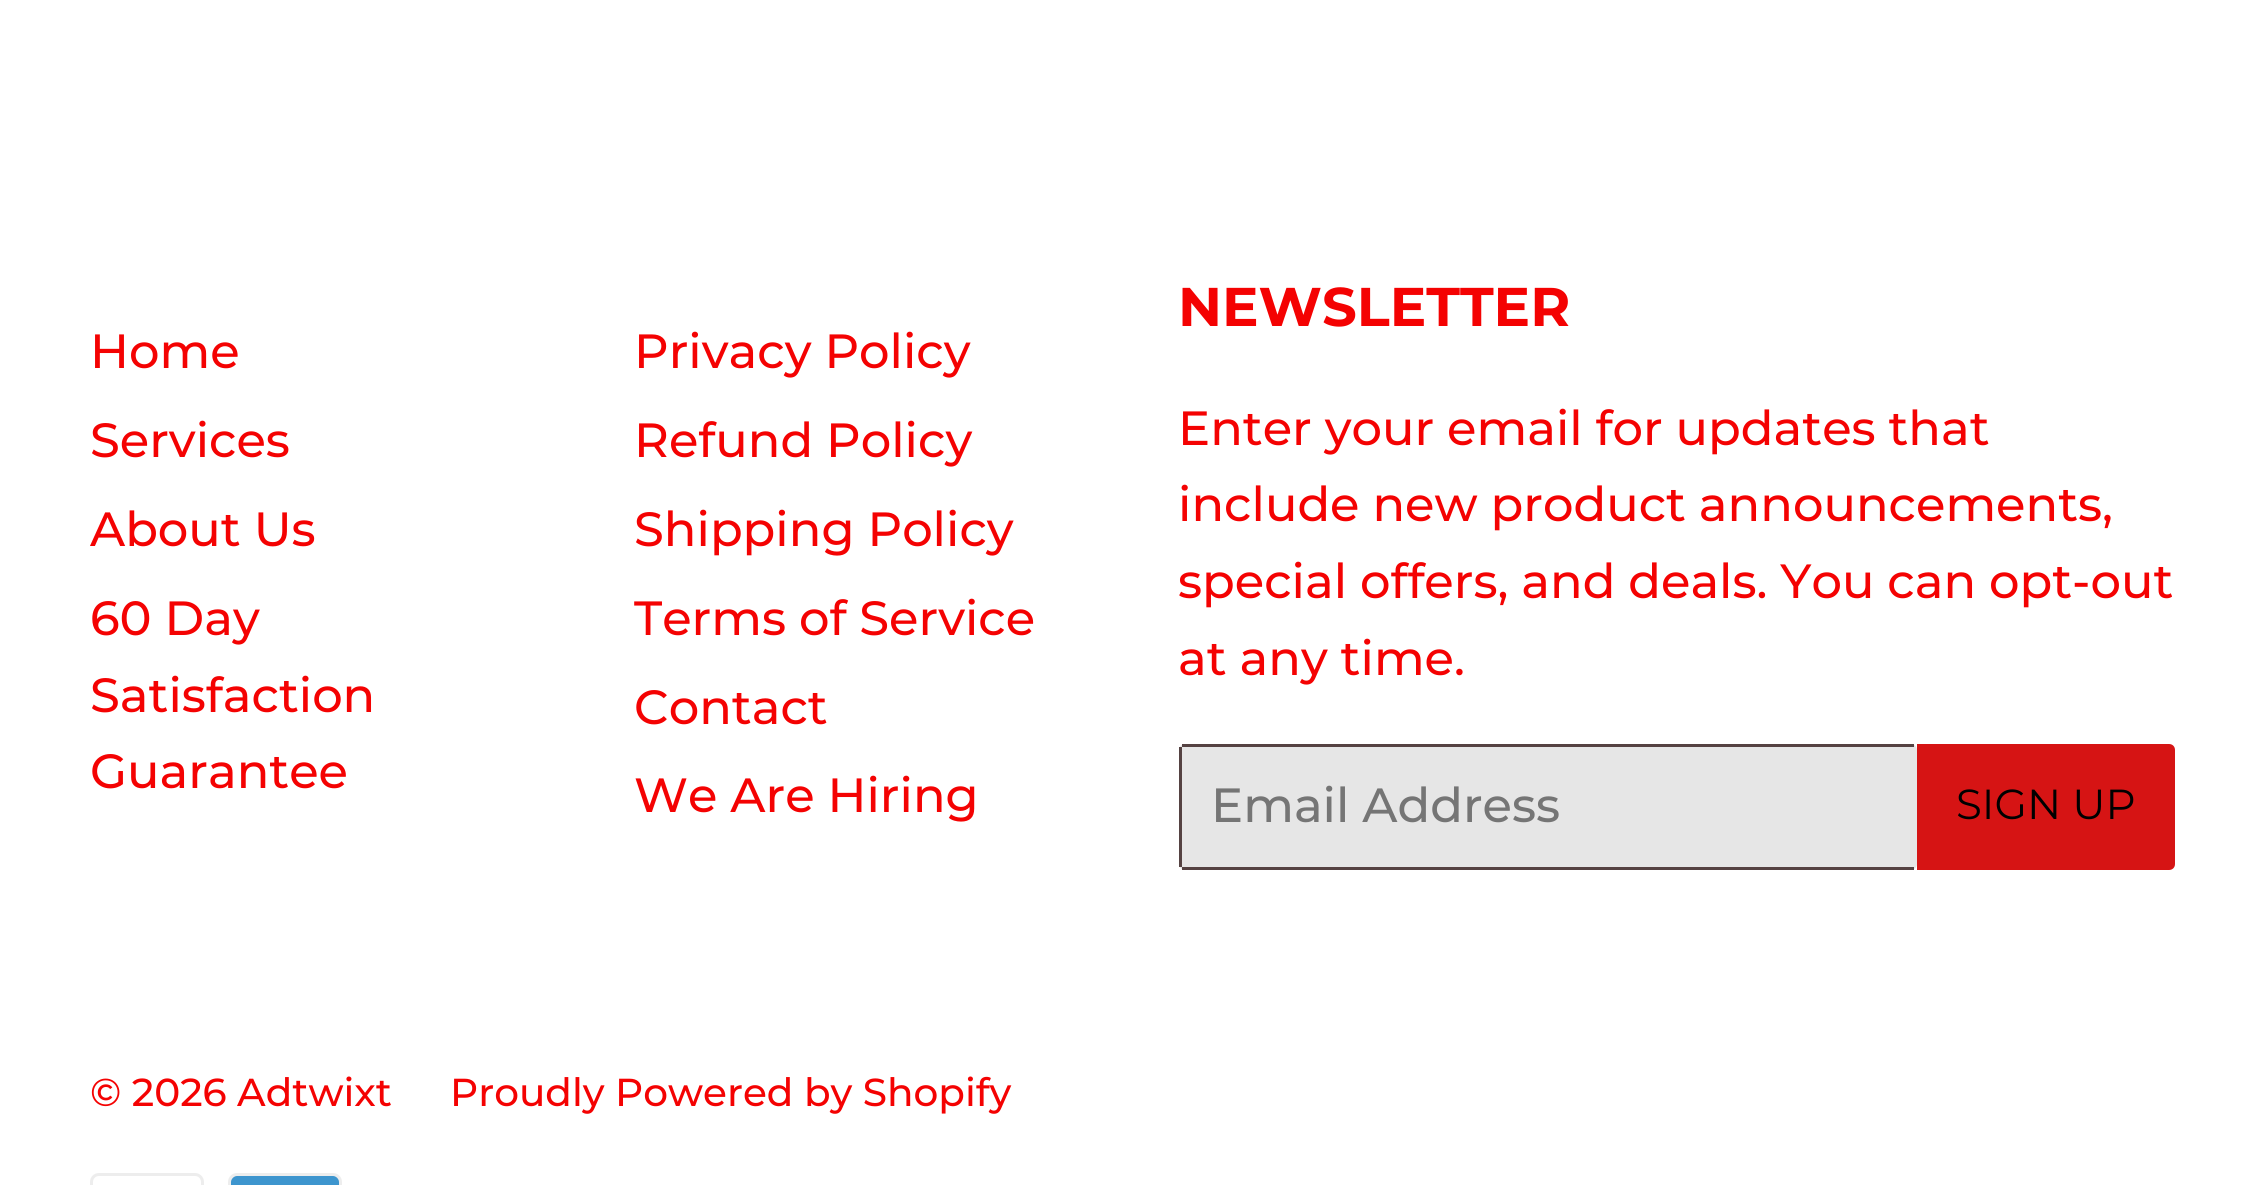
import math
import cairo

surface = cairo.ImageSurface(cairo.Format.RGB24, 2263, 1185)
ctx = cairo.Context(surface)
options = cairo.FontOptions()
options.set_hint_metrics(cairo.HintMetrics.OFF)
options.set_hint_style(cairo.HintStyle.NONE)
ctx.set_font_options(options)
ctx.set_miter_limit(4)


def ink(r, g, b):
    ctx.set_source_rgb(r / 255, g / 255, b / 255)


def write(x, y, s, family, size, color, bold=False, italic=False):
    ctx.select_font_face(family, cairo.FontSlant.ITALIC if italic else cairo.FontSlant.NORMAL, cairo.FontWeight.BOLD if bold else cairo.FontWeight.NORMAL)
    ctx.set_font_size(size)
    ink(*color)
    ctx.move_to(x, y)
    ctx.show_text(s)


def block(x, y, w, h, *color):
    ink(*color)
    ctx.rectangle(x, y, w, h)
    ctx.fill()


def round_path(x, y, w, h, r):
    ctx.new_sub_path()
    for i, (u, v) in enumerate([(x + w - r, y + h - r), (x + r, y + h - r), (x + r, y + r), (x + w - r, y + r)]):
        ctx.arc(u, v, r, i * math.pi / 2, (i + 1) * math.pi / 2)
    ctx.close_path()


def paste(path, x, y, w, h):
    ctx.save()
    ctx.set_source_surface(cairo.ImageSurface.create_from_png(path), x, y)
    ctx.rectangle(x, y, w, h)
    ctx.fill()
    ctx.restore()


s1 = dict(family="Montserrat Medium", size=48, color=(244, 2, 2))
s2 = dict(family="Montserrat", size=54.5, color=(244, 2, 2), bold=True)
s3 = dict(family="Montserrat Medium", size=48, color=(117, 117, 117))
s4 = dict(family="Montserrat", size=42, color=(0, 0, 0))
s5 = dict(family="Montserrat Medium", size=39, color=(244, 2, 2))

ink(255, 255, 255)
ctx.paint()
write(90, 368, "Home", **s1)
write(90, 457, "Services", **s1)
write(90, 546, "About Us", **s1)
write(90, 635, "60 Day", **s1)
write(90, 712, "Satisfaction", **s1)
write(90, 788, "Guarantee", **s1)
write(634, 368, "Privacy Policy", **s1)
write(634, 457, "Refund Policy", **s1)
write(634, 546, "Shipping Policy", **s1)
write(634, 635, "Terms of Service", **s1)
write(634, 724, "Contact", **s1)
write(634, 812, "We Are Hiring", **s1)
write(1178, 326, "NEWSLETTER", **s2)
write(1178, 445, "Enter your email for updates that", **s1)
write(1178, 521, "include new product announcements,", **s1)
write(1178, 598, "special offers, and deals. You can opt-out", **s1)
write(1178, 675, "at any time.", **s1)
ink(230, 230, 230)
round_path(1179, 744, 738, 126, 6)
ctx.fill()
block(1182, 744, 732, 3, 85, 66, 66)
block(1182, 867, 732, 3, 85, 66, 66)
block(1179, 747, 3, 120, 85, 66, 66)
write(1211, 822, "Email Address", **s3)
ink(214, 20, 20)
ctx.new_path()
ctx.move_to(1917, 744)
ctx.line_to(2169, 744)
ctx.curve_to(2172.5, 744, 2175, 746.5, 2175, 750)
ctx.line_to(2175, 864)
ctx.curve_to(2175, 867.5, 2172.5, 870, 2169, 870)
ctx.line_to(1917, 870)
ctx.close_path()
ctx.fill()
write(1956, 819, "SIGN UP", **s4)
write(90, 1106, "© 2026 Adtwixt", **s5)
write(450, 1106, "Proudly Powered by Shopify", **s5)
paste("pic1.png", 90, 1173, 114, 12)
ink(237, 237, 237)
round_path(228, 1173, 114, 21, 9)
ctx.fill()
ink(61, 149, 206)
ctx.set_fill_rule(cairo.FillRule.EVEN_ODD)
ctx.new_path()
ctx.move_to(333, 1176)
ctx.curve_to(336, 1176, 339, 1179, 339, 1182)
ctx.line_to(339, 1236)
ctx.curve_to(339, 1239, 336, 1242, 333, 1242)
ctx.line_to(237, 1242)
ctx.curve_to(234, 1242, 231, 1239, 231, 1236)
ctx.line_to(231, 1182)
ctx.curve_to(231, 1179, 234, 1176, 237, 1176)
ctx.line_to(333, 1176)
ctx.fill()
surface.write_to_png("screenshot.png")
